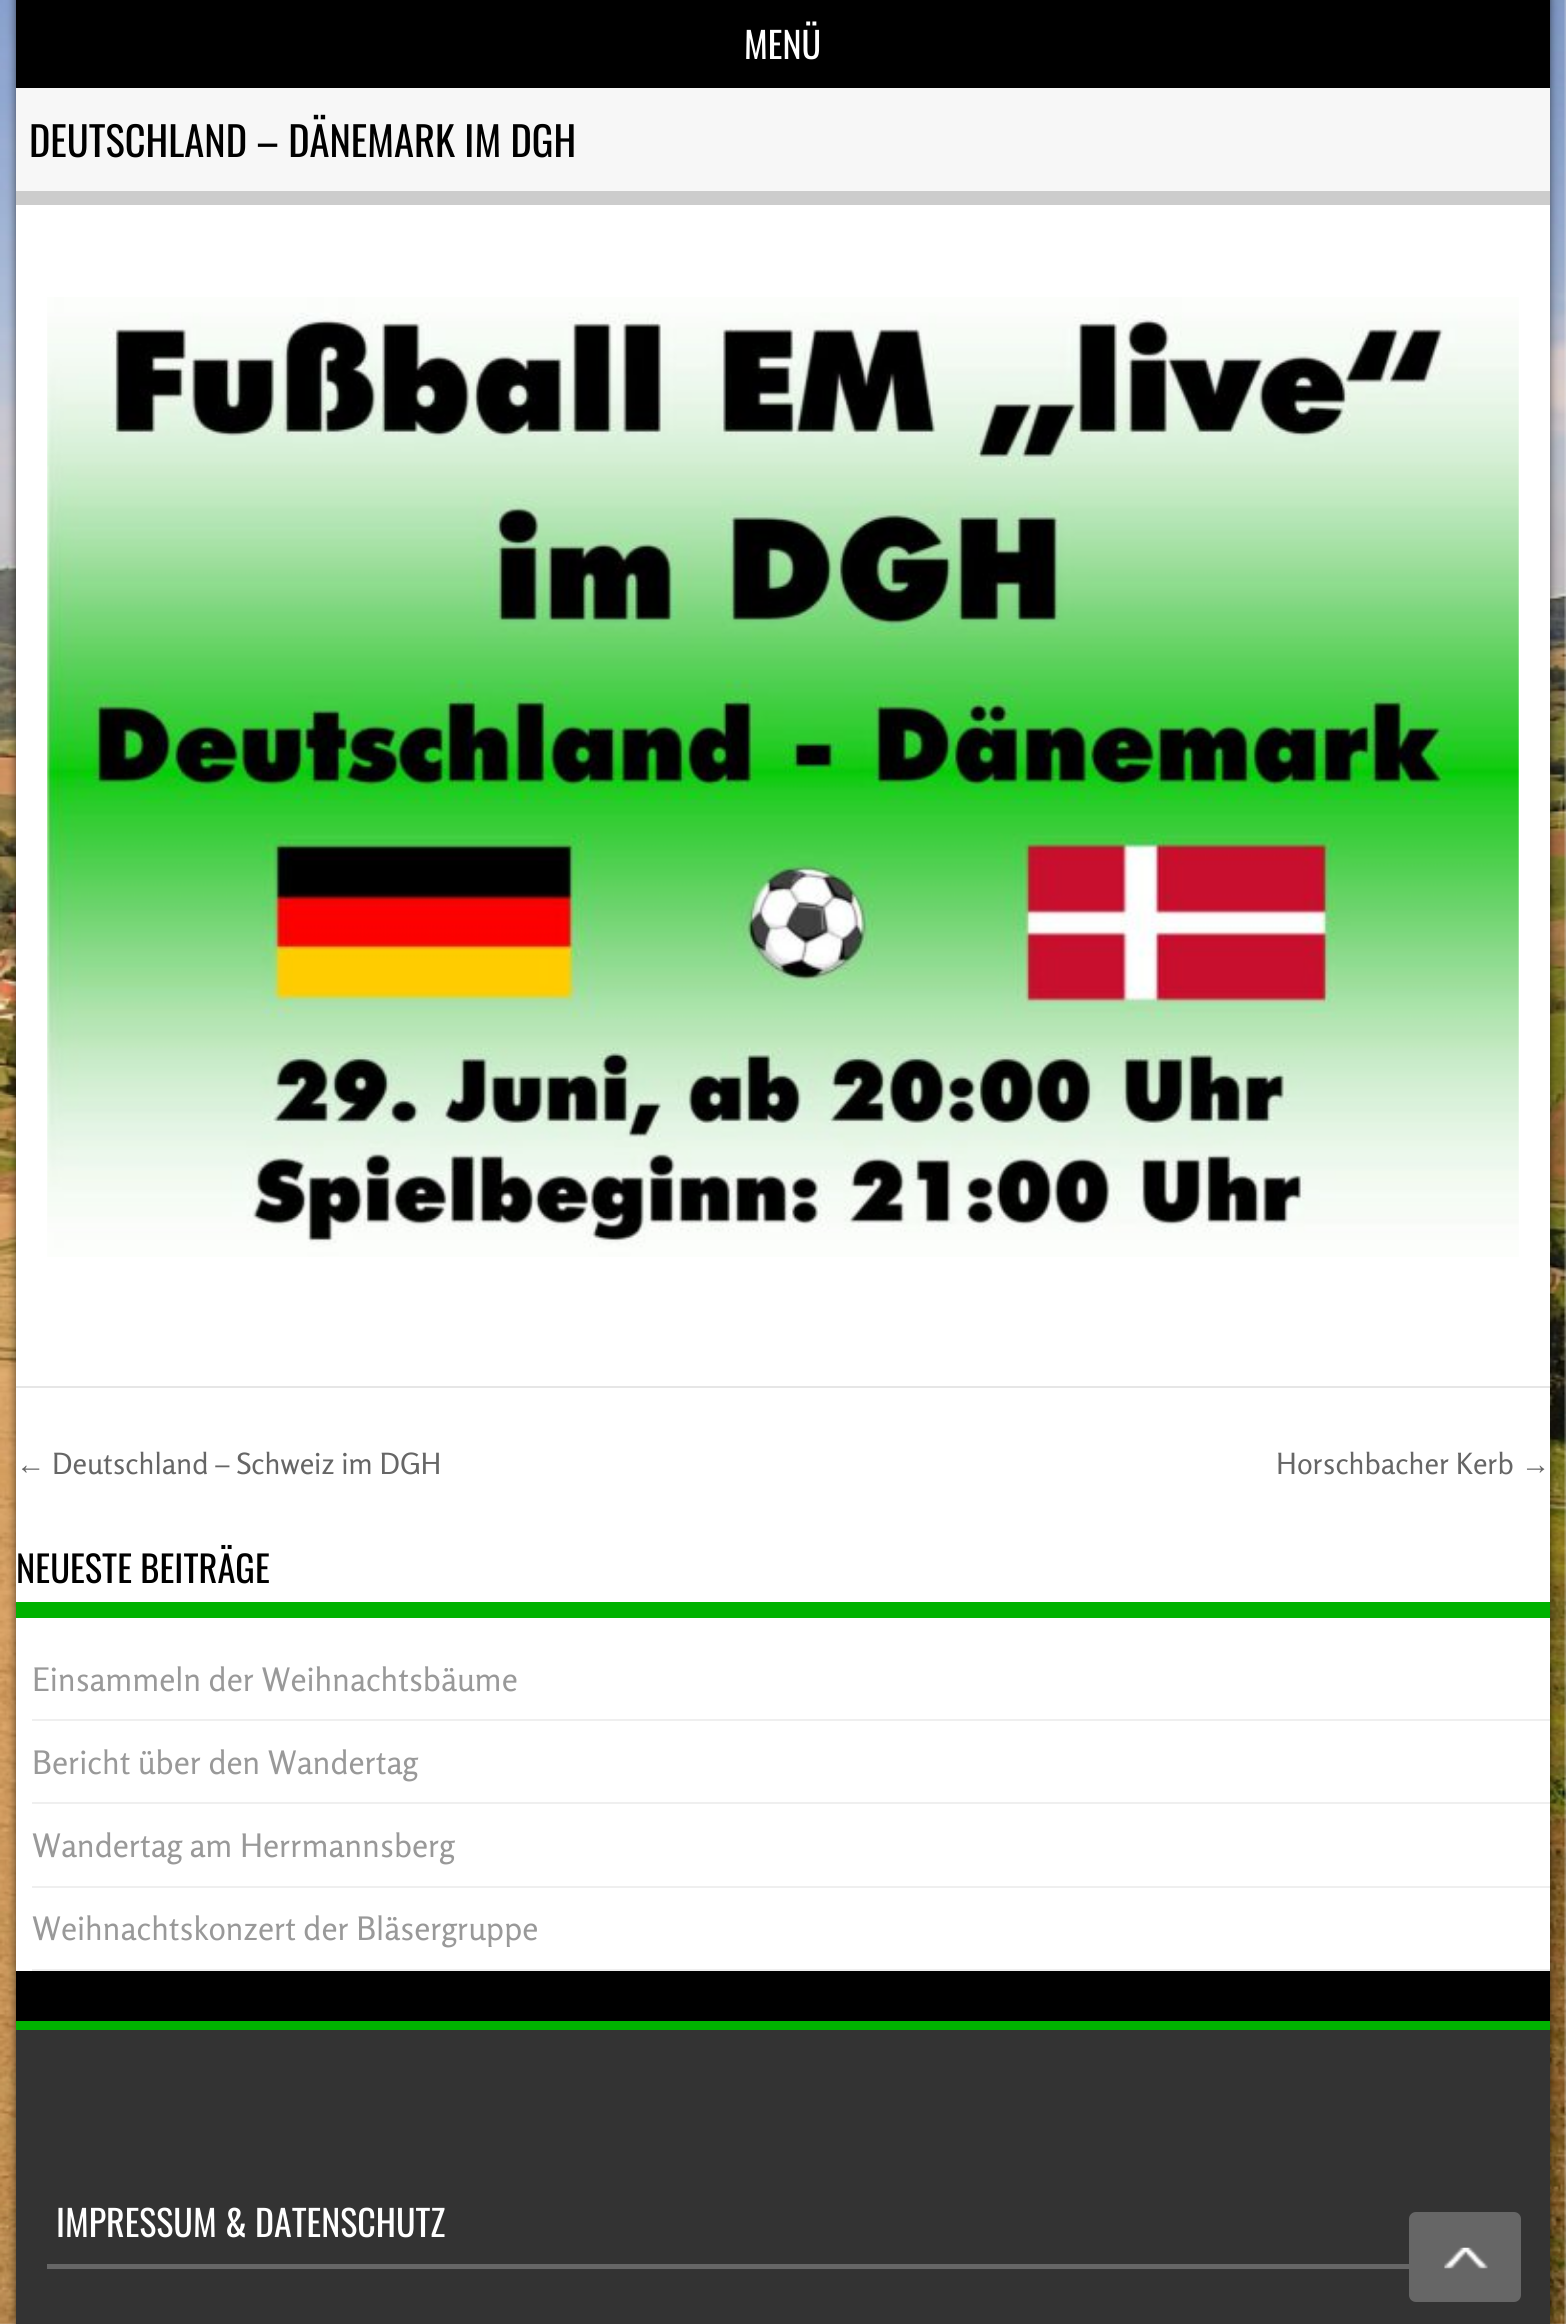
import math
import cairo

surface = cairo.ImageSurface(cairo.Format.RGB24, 1566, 2324)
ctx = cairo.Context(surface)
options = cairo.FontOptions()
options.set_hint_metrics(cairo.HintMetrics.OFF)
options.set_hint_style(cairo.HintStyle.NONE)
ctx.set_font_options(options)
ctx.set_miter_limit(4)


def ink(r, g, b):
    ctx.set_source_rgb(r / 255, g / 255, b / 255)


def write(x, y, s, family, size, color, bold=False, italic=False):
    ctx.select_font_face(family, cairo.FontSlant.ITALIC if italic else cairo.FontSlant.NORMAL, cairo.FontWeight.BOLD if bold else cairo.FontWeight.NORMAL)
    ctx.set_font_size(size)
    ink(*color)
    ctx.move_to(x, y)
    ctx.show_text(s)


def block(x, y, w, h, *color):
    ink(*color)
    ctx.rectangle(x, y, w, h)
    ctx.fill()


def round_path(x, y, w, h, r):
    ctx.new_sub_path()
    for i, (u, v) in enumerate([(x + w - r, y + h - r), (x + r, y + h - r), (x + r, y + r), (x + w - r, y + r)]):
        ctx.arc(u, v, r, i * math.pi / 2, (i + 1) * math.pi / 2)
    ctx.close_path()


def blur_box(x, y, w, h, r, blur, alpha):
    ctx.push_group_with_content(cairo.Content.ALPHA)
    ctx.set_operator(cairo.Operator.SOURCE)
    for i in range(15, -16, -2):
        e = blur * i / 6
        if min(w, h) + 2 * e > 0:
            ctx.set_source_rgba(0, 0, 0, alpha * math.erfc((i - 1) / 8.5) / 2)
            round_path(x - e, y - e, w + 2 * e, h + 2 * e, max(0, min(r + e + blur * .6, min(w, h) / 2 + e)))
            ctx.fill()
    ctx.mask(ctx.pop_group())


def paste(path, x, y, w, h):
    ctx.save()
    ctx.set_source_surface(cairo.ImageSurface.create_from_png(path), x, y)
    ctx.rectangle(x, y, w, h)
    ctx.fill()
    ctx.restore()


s1 = dict(family="Oswald", size=36, color=(255, 255, 255))
s2 = dict(family="Oswald", size=40.5, color=(0, 0, 0))
s3 = dict(family="Liberation Sans", size=29.25, color=(102, 102, 102))
s4 = dict(family="Rosario", size=29.25, color=(102, 102, 102))
s5 = dict(family="Oswald", size=36.5, color=(0, 0, 0))
s6 = dict(family="Rosario", size=32.4, color=(153, 153, 153))

ink(238, 238, 238)
ctx.paint()
paste("pic1.png", 0, 0, 1566, 2324)
ink(0, 0, 0)
blur_box(16, -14, 1534, 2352, 0, 4.5, 0.6)
block(16, 0, 1534, 2021, 0, 0, 0)
write(744, 59, "MENÜ", **s1)
block(16, 205, 1534, 1766, 255, 255, 255)
block(16, 1386, 1534, 2, 230, 230, 230)
block(16, 88, 1534, 103, 247, 247, 247)
block(16, 191, 1534, 14, 204, 204, 204)
write(29, 157, "DEUTSCHLAND – DÄNEMARK IM DGH", **s2)
paste("pic2.png", 47, 297, 1472, 960)
write(16, 1474, "←", **s3)
write(52, 1474, "Deutschland – Schweiz im DGH", **s4)
write(1276, 1474, "Horschbacher Kerb", **s4)
write(1521, 1474, "→", **s3)
block(16, 1602, 1534, 16, 0, 178, 0)
write(16, 1583, "NEUESTE BEITRÄGE", **s5)
block(32, 1719, 1518, 2, 239, 239, 239)
write(32, 1691, "Einsammeln der Weihnachtsbäume", **s6)
block(32, 1802, 1518, 2, 239, 239, 239)
write(32, 1774, "Bericht über den Wandertag", **s6)
block(32, 1886, 1518, 2, 239, 239, 239)
write(32, 1857, "Wandertag am Herrmannsberg", **s6)
block(32, 1969, 1518, 2, 239, 239, 239)
write(32, 1940, "Weihnachtskonzert der Bläsergruppe", **s6)
block(16, 2030, 1534, 294, 51, 51, 51)
block(16, 2021, 1534, 9, 0, 178, 0)
block(47, 2264, 1362, 5, 102, 102, 102)
write(56, 2237, "IMPRESSUM & DATENSCHUTZ", **s1)
ink(102, 102, 102)
round_path(1409, 2212, 112, 90, 7)
ctx.fill()
paste("pic3.png", 1444, 2247, 44, 22)
surface.write_to_png("screenshot.png")
